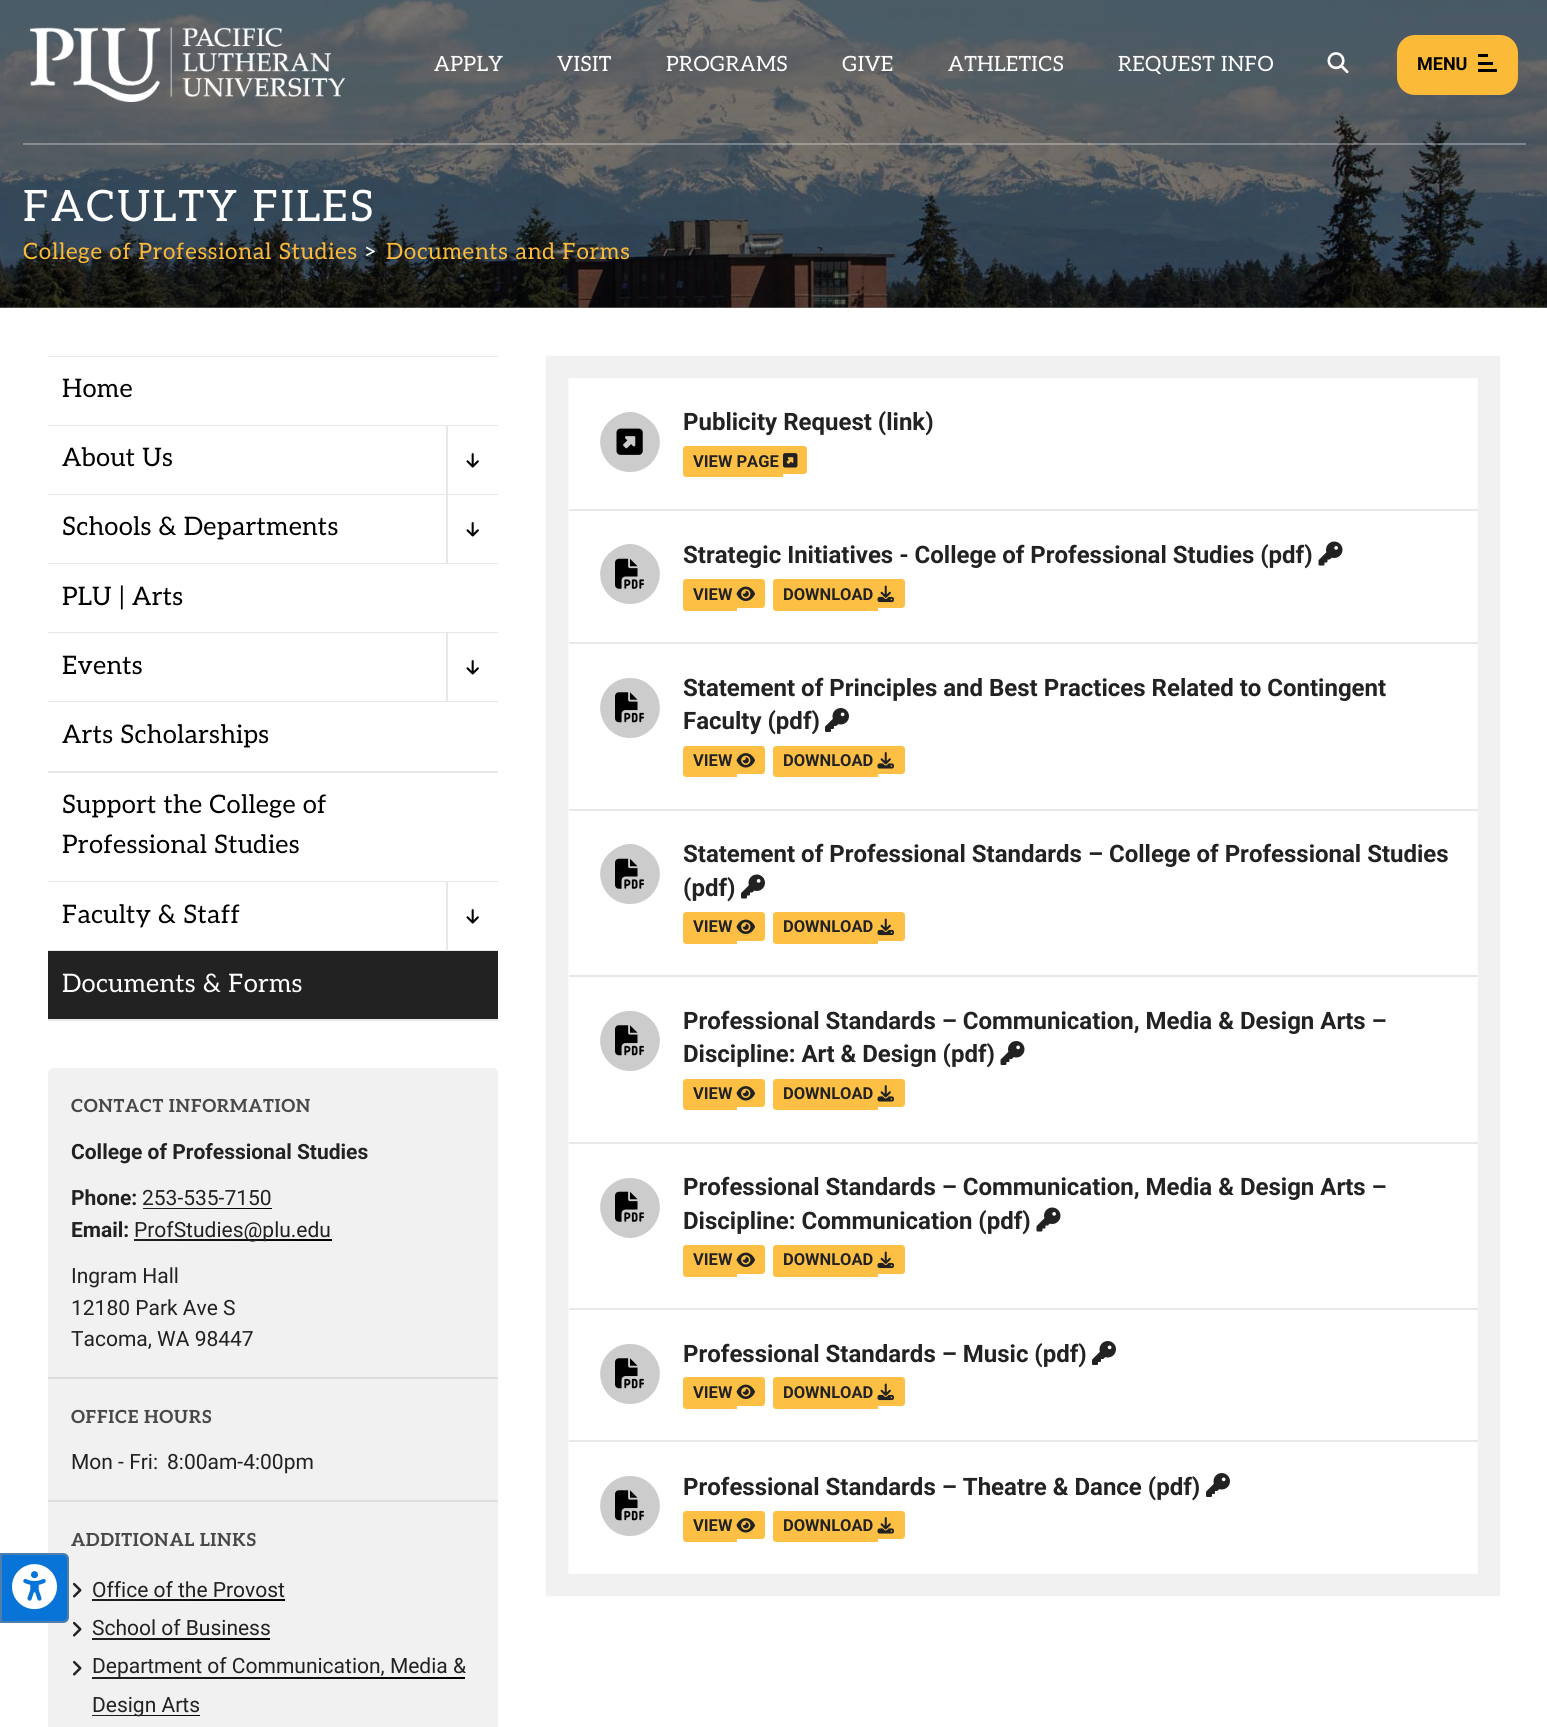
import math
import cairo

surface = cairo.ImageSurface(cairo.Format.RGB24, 1547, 1727)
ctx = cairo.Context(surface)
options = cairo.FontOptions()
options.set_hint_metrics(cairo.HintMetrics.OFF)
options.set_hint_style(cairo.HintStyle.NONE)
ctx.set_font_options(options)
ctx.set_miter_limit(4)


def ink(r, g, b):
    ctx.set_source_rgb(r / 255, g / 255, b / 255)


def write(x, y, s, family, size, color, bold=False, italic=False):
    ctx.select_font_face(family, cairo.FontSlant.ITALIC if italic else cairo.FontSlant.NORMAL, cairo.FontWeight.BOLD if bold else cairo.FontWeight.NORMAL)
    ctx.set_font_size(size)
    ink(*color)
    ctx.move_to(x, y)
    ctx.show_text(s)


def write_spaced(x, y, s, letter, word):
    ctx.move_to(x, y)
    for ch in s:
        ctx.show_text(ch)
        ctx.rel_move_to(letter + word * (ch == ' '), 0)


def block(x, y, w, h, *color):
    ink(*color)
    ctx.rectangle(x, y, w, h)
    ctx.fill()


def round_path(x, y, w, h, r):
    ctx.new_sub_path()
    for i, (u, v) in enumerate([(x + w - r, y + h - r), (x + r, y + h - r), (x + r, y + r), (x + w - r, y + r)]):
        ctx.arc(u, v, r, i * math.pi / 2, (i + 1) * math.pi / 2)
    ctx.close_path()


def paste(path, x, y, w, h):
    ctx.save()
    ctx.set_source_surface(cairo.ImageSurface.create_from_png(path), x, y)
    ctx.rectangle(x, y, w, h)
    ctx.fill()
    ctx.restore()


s1 = dict(family="Roboto", size=18, color=(0, 0, 0), bold=True)
s2 = dict(family="Roboto", size=21, color=(34, 34, 34), bold=True)
s3 = dict(family="Roboto", size=21, color=(34, 34, 34))
s4 = dict(family="Roboto", size=24, color=(34, 34, 34), bold=True)
s5 = dict(family="Roboto", size=16.5, color=(34, 34, 34), bold=True)

ink(255, 255, 255)
ctx.paint()
block(0, 307, 1547, 1, 128, 128, 128)
paste("pic3.png", 0, 0, 1547, 308)
paste("pic1.png", 30, 27, 315, 75)
ctx.select_font_face("Aleo")
ctx.set_font_size(21)
ink(255, 255, 255)
write_spaced(434, 71, "APPLY", 0.3, 0)
write_spaced(557, 71, "VISIT", 0.3, 0)
write_spaced(666, 71, "PROGRAMS", 0.3, 0)
write_spaced(842, 71, "GIVE", 0.3, 0)
write_spaced(948, 71, "ATHLETICS", 0.3, 0)
write_spaced(1118, 71, "REQUEST INFO", 0.3, 0)
paste("pic2.png", 1327, 52, 22, 22)
ink(251, 186, 55)
round_path(1397, 35, 121, 60, 18)
ctx.fill()
write(1417, 70, "MENU", **s1)
block(1478, 54, 10, 3, 0, 0, 0)
block(1478, 62, 15, 3, 0, 0, 0)
block(1478, 69, 19, 3, 0, 0, 0)
ctx.select_font_face("Roboto")
ink(31, 40, 48)
write_spaced(1177, 281, "NEWS", 0.75, 0)
ctx.set_source_rgba(1, 1, 1, 0.3)
ctx.rectangle(23, 143, 1503, 2)
ctx.fill()
ctx.select_font_face("Aleo")
ctx.set_font_size(43.25)
ink(255, 255, 255)
write_spaced(23, 221, "FACULTY FILES", 2.25, 0)
ctx.set_font_size(22.5)
ink(251, 186, 55)
write_spaced(23, 259, "College of Professional Studies", 0.75, 0)
ink(255, 255, 255)
write_spaced(365, 259, ">", 0.75, 0)
ink(251, 186, 55)
write_spaced(386, 259, "Documents and Forms", 0.75, 0)
block(48, 356, 450, 1, 232, 232, 232)
block(48, 1019, 450, 2, 232, 232, 232)
block(48, 425, 450, 1, 232, 232, 232)
ctx.set_font_size(25.5)
ink(0, 0, 0)
write_spaced(62, 397, "Home", 0.3, 0)
block(48, 494, 450, 1, 232, 232, 232)
ink(0, 0, 0)
write_spaced(62, 466, "About Us", 0.3, 0)
block(446, 426, 2, 68, 232, 232, 232)
paste("pic4.png", 466, 453, 13, 15)
block(48, 563, 450, 1, 232, 232, 232)
ink(0, 0, 0)
write_spaced(62, 535, "Schools & Departments", 0.3, 0)
block(446, 495, 2, 68, 232, 232, 232)
paste("pic4.png", 466, 522, 13, 15)
block(48, 632, 450, 1, 232, 232, 232)
ink(0, 0, 0)
write_spaced(62, 605, "PLU | Arts", 0.3, 0)
block(48, 701, 450, 1, 232, 232, 232)
ink(0, 0, 0)
write_spaced(62, 674, "Events", 0.3, 0)
block(446, 633, 2, 68, 232, 232, 232)
paste("pic4.png", 466, 660, 13, 15)
block(48, 771, 450, 2, 232, 232, 232)
ink(0, 0, 0)
write_spaced(62, 743, "Arts Scholarships", 0.3, 0)
block(48, 881, 450, 1, 232, 232, 232)
ink(0, 0, 0)
write_spaced(62, 813, "Support the College of", 0.3, 0)
write_spaced(62, 853, "Professional Studies", 0.3, 0)
block(48, 950, 450, 1, 232, 232, 232)
ink(0, 0, 0)
write_spaced(62, 923, "Faculty & Staff", 0.3, 0)
block(446, 882, 2, 68, 232, 232, 232)
paste("pic4.png", 466, 909, 13, 15)
block(48, 951, 450, 68, 34, 34, 34)
ink(255, 255, 255)
write_spaced(62, 992, "Documents & Forms", 0.3, 0)
ink(241, 241, 241)
round_path(48, 1068, 450, 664, 5)
ctx.fill()
block(48, 1377, 450, 2, 221, 221, 221)
ctx.select_font_face("Aleo", cairo.FontSlant.NORMAL, cairo.FontWeight.BOLD)
ctx.set_font_size(18)
ink(73, 73, 73)
write_spaced(71, 1112, "CONTACT INFORMATION", 0.6, 0)
write(71, 1159, "College of Professional Studies", **s2)
write(71, 1205, "Phone:", **s2)
write(142, 1205, "253-535-7150", **s3)
gradient = cairo.LinearGradient(143, 1208, 272, 1208)
gradient.add_color_stop_rgba(0, 0.133, 0.133, 0.133, 1)
gradient.add_color_stop_rgba(1, 0, 0, 0, 1)
ctx.set_source(gradient)
ctx.rectangle(143, 1208, 129, 1)
ctx.fill()
write(71, 1237, "Email:", **s2)
gradient = cairo.LinearGradient(134, 1240, 332, 1240)
gradient.add_color_stop_rgba(0, 0.133, 0.133, 0.133, 1)
gradient.add_color_stop_rgba(1, 0, 0, 0, 1)
ctx.set_source(gradient)
ctx.rectangle(134, 1239, 198, 2)
ctx.fill()
write(134, 1237, "ProfStudies@plu.edu", **s3)
write(71, 1283, "Ingram Hall", **s3)
write(71, 1315, "12180 Park Ave S", **s3)
write(71, 1346, "Tacoma, WA 98447", **s3)
block(48, 1500, 450, 2, 221, 221, 221)
ctx.select_font_face("Aleo", cairo.FontSlant.NORMAL, cairo.FontWeight.BOLD)
ctx.set_font_size(18)
ink(73, 73, 73)
write_spaced(71, 1423, "OFFICE HOURS", 0.6, 0)
write(71, 1469, "Mon - Fri:", **s3)
write(167, 1469, "8:00am-4:00pm", **s3)
ctx.select_font_face("Aleo", cairo.FontSlant.NORMAL, cairo.FontWeight.BOLD)
ctx.set_font_size(18)
ink(73, 73, 73)
write_spaced(71, 1546, "ADDITIONAL LINKS", 0.6, 0)
gradient = cairo.LinearGradient(92, 1600, 285, 1600)
gradient.add_color_stop_rgba(0, 0.133, 0.133, 0.133, 1)
gradient.add_color_stop_rgba(1, 0, 0, 0, 1)
ctx.set_source(gradient)
ctx.rectangle(92, 1599, 193, 2)
ctx.fill()
paste("pic5.png", 72, 1582, 10, 16)
write(92, 1597, "Office of the Provost", **s3)
gradient = cairo.LinearGradient(92, 1639, 270, 1639)
gradient.add_color_stop_rgba(0, 0.133, 0.133, 0.133, 1)
gradient.add_color_stop_rgba(1, 0, 0, 0, 1)
ctx.set_source(gradient)
ctx.rectangle(92, 1638, 178, 2)
ctx.fill()
paste("pic5.png", 72, 1621, 10, 16)
write(92, 1635, "School of Business", **s3)
gradient = cairo.LinearGradient(92, 1678, 465, 1678)
gradient.add_color_stop_rgba(0, 0.133, 0.133, 0.133, 1)
gradient.add_color_stop_rgba(1, 0, 0, 0, 1)
ctx.set_source(gradient)
ctx.rectangle(92, 1677, 373, 2)
ctx.fill()
gradient = cairo.LinearGradient(92, 1715, 200, 1715)
gradient.add_color_stop_rgba(0, 0.133, 0.133, 0.133, 1)
gradient.add_color_stop_rgba(1, 0, 0, 0, 1)
ctx.set_source(gradient)
ctx.rectangle(92, 1715, 108, 1)
ctx.fill()
paste("pic5.png", 72, 1660, 10, 16)
write(92, 1673, "Department of Communication, Media &", **s3)
write(92, 1712, "Design Arts", **s3)
ctx.new_path()
ctx.move_to(557, 367)
ctx.line_to(1489, 367)
ctx.line_to(1489, 1585)
ctx.line_to(557, 1585)
ctx.close_path()
ink(241, 241, 241)
ctx.set_line_width(22.5)
ctx.stroke()
block(569, 509, 909, 2, 232, 232, 232)
ink(204, 204, 204)
ctx.new_path()
ctx.move_to(630, 472)
ctx.curve_to(658, 472, 671, 436, 648, 419)
ctx.curve_to(643, 415, 637, 412, 630, 412)
ctx.curve_to(623, 412, 617, 415, 612, 419)
ctx.curve_to(589, 436, 602, 472, 630, 472)
ctx.close_path()
ctx.fill()
paste("pic6.png", 616, 428, 27, 27)
write(683, 430, "Publicity Request (link)", **s4)
ink(253, 192, 69)
ctx.new_path()
ctx.move_to(686, 446)
ctx.line_to(783, 446)
ctx.line_to(783, 477)
ctx.line_to(686, 477)
ctx.curve_to(684.5, 477, 683, 475.5, 683, 474)
ctx.line_to(683, 449)
ctx.curve_to(683, 447.5, 684.5, 446, 686, 446)
ctx.close_path()
ctx.fill()
ctx.new_path()
ctx.move_to(783, 446)
ctx.line_to(804, 446)
ctx.curve_to(805.5, 446, 807, 447.5, 807, 449)
ctx.line_to(807, 471)
ctx.curve_to(807, 472.5, 805.5, 474, 804, 474)
ctx.line_to(783, 474)
ctx.close_path()
ctx.fill()
write(693, 467, "VIEW PAGE", **s5)
paste("pic7.png", 783, 453, 15, 15)
block(569, 642, 909, 2, 232, 232, 232)
ink(204, 204, 204)
ctx.new_path()
ctx.move_to(630, 604)
ctx.curve_to(658, 604, 671, 568, 648, 551)
ctx.curve_to(643, 547, 637, 544, 630, 544)
ctx.curve_to(623, 544, 617, 547, 612, 551)
ctx.curve_to(589, 568, 602, 604, 630, 604)
ctx.close_path()
ctx.fill()
paste("pic8.png", 615, 558, 29, 31)
write(683, 563, "Strategic Initiatives - College of Professional Studies (pdf)", **s4)
paste("pic9.png", 1318, 541, 25, 25)
ink(253, 192, 69)
ctx.new_path()
ctx.move_to(686, 579)
ctx.line_to(737, 579)
ctx.line_to(737, 611)
ctx.line_to(686, 611)
ctx.curve_to(684.5, 611, 683, 609.5, 683, 608)
ctx.line_to(683, 582)
ctx.curve_to(683, 580.5, 684.5, 579, 686, 579)
ctx.close_path()
ctx.fill()
ctx.new_path()
ctx.move_to(737, 579)
ctx.line_to(762, 579)
ctx.curve_to(763.5, 579, 765, 580.5, 765, 582)
ctx.line_to(765, 605)
ctx.curve_to(765, 606.5, 763.5, 608, 762, 608)
ctx.line_to(737, 608)
ctx.close_path()
ctx.fill()
write(693, 600, "VIEW", **s5)
paste("pic10.png", 736, 586, 20, 15)
ink(253, 192, 69)
ctx.new_path()
ctx.move_to(776, 579)
ctx.line_to(878, 579)
ctx.line_to(878, 611)
ctx.line_to(776, 611)
ctx.curve_to(774.5, 611, 773, 609.5, 773, 608)
ctx.line_to(773, 582)
ctx.curve_to(773, 580.5, 774.5, 579, 776, 579)
ctx.close_path()
ctx.fill()
ctx.new_path()
ctx.move_to(878, 579)
ctx.line_to(902, 579)
ctx.curve_to(903.5, 579, 905, 580.5, 905, 582)
ctx.line_to(905, 605)
ctx.curve_to(905, 606.5, 903.5, 608, 902, 608)
ctx.line_to(878, 608)
ctx.close_path()
ctx.fill()
write(783, 600, "DOWNLOAD", **s5)
paste("pic11.png", 877, 585, 17, 18)
block(569, 809, 909, 2, 232, 232, 232)
ink(204, 204, 204)
ctx.new_path()
ctx.move_to(630, 738)
ctx.curve_to(658, 738, 671, 702, 648, 684)
ctx.curve_to(643, 680, 637, 678, 630, 678)
ctx.curve_to(623, 678, 617, 680, 612, 684)
ctx.curve_to(589, 702, 602, 738, 630, 738)
ctx.close_path()
ctx.fill()
paste("pic12.png", 615, 692, 29, 31)
write(683, 696, "Statement of Principles and Best Practices Related to Contingent", **s4)
write(683, 729, "Faculty (pdf)", **s4)
paste("pic13.png", 825, 708, 24, 24)
ink(253, 192, 69)
ctx.new_path()
ctx.move_to(686, 746)
ctx.line_to(737, 746)
ctx.line_to(737, 777)
ctx.line_to(686, 777)
ctx.curve_to(684.5, 777, 683, 775.5, 683, 774)
ctx.line_to(683, 749)
ctx.curve_to(683, 747.5, 684.5, 746, 686, 746)
ctx.close_path()
ctx.fill()
ctx.new_path()
ctx.move_to(737, 746)
ctx.line_to(762, 746)
ctx.curve_to(763.5, 746, 765, 747.5, 765, 749)
ctx.line_to(765, 771)
ctx.curve_to(765, 772.5, 763.5, 774, 762, 774)
ctx.line_to(737, 774)
ctx.close_path()
ctx.fill()
write(693, 766, "VIEW", **s5)
paste("pic14.png", 736, 753, 20, 15)
ink(253, 192, 69)
ctx.new_path()
ctx.move_to(776, 746)
ctx.line_to(878, 746)
ctx.line_to(878, 777)
ctx.line_to(776, 777)
ctx.curve_to(774.5, 777, 773, 775.5, 773, 774)
ctx.line_to(773, 749)
ctx.curve_to(773, 747.5, 774.5, 746, 776, 746)
ctx.close_path()
ctx.fill()
ctx.new_path()
ctx.move_to(878, 746)
ctx.line_to(902, 746)
ctx.curve_to(903.5, 746, 905, 747.5, 905, 749)
ctx.line_to(905, 771)
ctx.curve_to(905, 772.5, 903.5, 774, 902, 774)
ctx.line_to(878, 774)
ctx.close_path()
ctx.fill()
write(783, 766, "DOWNLOAD", **s5)
paste("pic15.png", 877, 752, 17, 17)
block(569, 975, 909, 2, 232, 232, 232)
ink(204, 204, 204)
ctx.new_path()
ctx.move_to(630, 904)
ctx.curve_to(658, 904, 671, 868, 648, 851)
ctx.curve_to(643, 847, 637, 844, 630, 844)
ctx.curve_to(623, 844, 617, 847, 612, 851)
ctx.curve_to(589, 868, 602, 904, 630, 904)
ctx.close_path()
ctx.fill()
paste("pic8.png", 615, 858, 29, 31)
write(683, 862, "Statement of Professional Standards – College of Professional Studies", **s4)
write(683, 896, "(pdf)", **s4)
paste("pic16.png", 741, 874, 24, 25)
ink(253, 192, 69)
ctx.new_path()
ctx.move_to(686, 912)
ctx.line_to(737, 912)
ctx.line_to(737, 944)
ctx.line_to(686, 944)
ctx.curve_to(684.5, 944, 683, 942.5, 683, 941)
ctx.line_to(683, 915)
ctx.curve_to(683, 913.5, 684.5, 912, 686, 912)
ctx.close_path()
ctx.fill()
ctx.new_path()
ctx.move_to(737, 912)
ctx.line_to(762, 912)
ctx.curve_to(763.5, 912, 765, 913.5, 765, 915)
ctx.line_to(765, 938)
ctx.curve_to(765, 939.5, 763.5, 941, 762, 941)
ctx.line_to(737, 941)
ctx.close_path()
ctx.fill()
write(693, 932, "VIEW", **s5)
paste("pic10.png", 736, 919, 20, 15)
ink(253, 192, 69)
ctx.new_path()
ctx.move_to(776, 912)
ctx.line_to(878, 912)
ctx.line_to(878, 944)
ctx.line_to(776, 944)
ctx.curve_to(774.5, 944, 773, 942.5, 773, 941)
ctx.line_to(773, 915)
ctx.curve_to(773, 913.5, 774.5, 912, 776, 912)
ctx.close_path()
ctx.fill()
ctx.new_path()
ctx.move_to(878, 912)
ctx.line_to(902, 912)
ctx.curve_to(903.5, 912, 905, 913.5, 905, 915)
ctx.line_to(905, 938)
ctx.curve_to(905, 939.5, 903.5, 941, 902, 941)
ctx.line_to(878, 941)
ctx.close_path()
ctx.fill()
write(783, 932, "DOWNLOAD", **s5)
paste("pic11.png", 877, 918, 17, 18)
block(569, 1142, 909, 2, 232, 232, 232)
ink(204, 204, 204)
ctx.new_path()
ctx.move_to(630, 1071)
ctx.curve_to(658, 1071, 671, 1035, 648, 1017)
ctx.curve_to(643, 1013, 637, 1011, 630, 1011)
ctx.curve_to(623, 1011, 617, 1013, 612, 1017)
ctx.curve_to(589, 1035, 602, 1071, 630, 1071)
ctx.close_path()
ctx.fill()
paste("pic12.png", 615, 1025, 29, 31)
write(683, 1029, "Professional Standards – Communication, Media & Design Arts –", **s4)
write(683, 1062, "Discipline: Art & Design (pdf)", **s4)
paste("pic17.png", 1000, 1041, 25, 24)
ink(253, 192, 69)
ctx.new_path()
ctx.move_to(686, 1079)
ctx.line_to(737, 1079)
ctx.line_to(737, 1110)
ctx.line_to(686, 1110)
ctx.curve_to(684.5, 1110, 683, 1108.5, 683, 1107)
ctx.line_to(683, 1082)
ctx.curve_to(683, 1080.5, 684.5, 1079, 686, 1079)
ctx.close_path()
ctx.fill()
ctx.new_path()
ctx.move_to(737, 1079)
ctx.line_to(762, 1079)
ctx.curve_to(763.5, 1079, 765, 1080.5, 765, 1082)
ctx.line_to(765, 1104)
ctx.curve_to(765, 1105.5, 763.5, 1107, 762, 1107)
ctx.line_to(737, 1107)
ctx.close_path()
ctx.fill()
write(693, 1099, "VIEW", **s5)
paste("pic14.png", 736, 1086, 20, 15)
ink(253, 192, 69)
ctx.new_path()
ctx.move_to(776, 1079)
ctx.line_to(878, 1079)
ctx.line_to(878, 1110)
ctx.line_to(776, 1110)
ctx.curve_to(774.5, 1110, 773, 1108.5, 773, 1107)
ctx.line_to(773, 1082)
ctx.curve_to(773, 1080.5, 774.5, 1079, 776, 1079)
ctx.close_path()
ctx.fill()
ctx.new_path()
ctx.move_to(878, 1079)
ctx.line_to(902, 1079)
ctx.curve_to(903.5, 1079, 905, 1080.5, 905, 1082)
ctx.line_to(905, 1104)
ctx.curve_to(905, 1105.5, 903.5, 1107, 902, 1107)
ctx.line_to(878, 1107)
ctx.close_path()
ctx.fill()
write(783, 1099, "DOWNLOAD", **s5)
paste("pic15.png", 877, 1085, 17, 17)
block(569, 1308, 909, 2, 232, 232, 232)
ink(204, 204, 204)
ctx.new_path()
ctx.move_to(630, 1238)
ctx.curve_to(658, 1237, 671, 1201, 648, 1184)
ctx.curve_to(643, 1180, 637, 1178, 630, 1178)
ctx.curve_to(623, 1178, 617, 1180, 612, 1184)
ctx.curve_to(589, 1201, 602, 1237, 630, 1238)
ctx.close_path()
ctx.fill()
paste("pic8.png", 615, 1191, 29, 31)
write(683, 1195, "Professional Standards – Communication, Media & Design Arts –", **s4)
write(683, 1229, "Discipline: Communication (pdf)", **s4)
paste("pic9.png", 1036, 1207, 25, 25)
ink(253, 192, 69)
ctx.new_path()
ctx.move_to(686, 1245)
ctx.line_to(737, 1245)
ctx.line_to(737, 1277)
ctx.line_to(686, 1277)
ctx.curve_to(684.5, 1277, 683, 1275.5, 683, 1274)
ctx.line_to(683, 1248)
ctx.curve_to(683, 1246.5, 684.5, 1245, 686, 1245)
ctx.close_path()
ctx.fill()
ctx.new_path()
ctx.move_to(737, 1245)
ctx.line_to(762, 1245)
ctx.curve_to(763.5, 1245, 765, 1246.5, 765, 1248)
ctx.line_to(765, 1271)
ctx.curve_to(765, 1272.5, 763.5, 1274, 762, 1274)
ctx.line_to(737, 1274)
ctx.close_path()
ctx.fill()
write(693, 1265, "VIEW", **s5)
paste("pic10.png", 736, 1252, 20, 15)
ink(253, 192, 69)
ctx.new_path()
ctx.move_to(776, 1245)
ctx.line_to(878, 1245)
ctx.line_to(878, 1277)
ctx.line_to(776, 1277)
ctx.curve_to(774.5, 1277, 773, 1275.5, 773, 1274)
ctx.line_to(773, 1248)
ctx.curve_to(773, 1246.5, 774.5, 1245, 776, 1245)
ctx.close_path()
ctx.fill()
ctx.new_path()
ctx.move_to(878, 1245)
ctx.line_to(902, 1245)
ctx.curve_to(903.5, 1245, 905, 1246.5, 905, 1248)
ctx.line_to(905, 1271)
ctx.curve_to(905, 1272.5, 903.5, 1274, 902, 1274)
ctx.line_to(878, 1274)
ctx.close_path()
ctx.fill()
write(783, 1265, "DOWNLOAD", **s5)
paste("pic11.png", 877, 1251, 17, 18)
block(569, 1440, 909, 2, 232, 232, 232)
ink(204, 204, 204)
ctx.new_path()
ctx.move_to(630, 1404)
ctx.curve_to(658, 1404, 671, 1368, 648, 1350)
ctx.curve_to(643, 1346, 637, 1344, 630, 1344)
ctx.curve_to(623, 1344, 617, 1346, 612, 1350)
ctx.curve_to(589, 1368, 602, 1404, 630, 1404)
ctx.close_path()
ctx.fill()
paste("pic12.png", 615, 1358, 29, 31)
write(683, 1362, "Professional Standards – Music (pdf)", **s4)
paste("pic13.png", 1092, 1341, 24, 24)
ink(253, 192, 69)
ctx.new_path()
ctx.move_to(686, 1377)
ctx.line_to(737, 1377)
ctx.line_to(737, 1409)
ctx.line_to(686, 1409)
ctx.curve_to(684.5, 1409, 683, 1407.5, 683, 1406)
ctx.line_to(683, 1380)
ctx.curve_to(683, 1378.5, 684.5, 1377, 686, 1377)
ctx.close_path()
ctx.fill()
ctx.new_path()
ctx.move_to(737, 1377)
ctx.line_to(762, 1377)
ctx.curve_to(763.5, 1377, 765, 1378.5, 765, 1380)
ctx.line_to(765, 1403)
ctx.curve_to(765, 1404.5, 763.5, 1406, 762, 1406)
ctx.line_to(737, 1406)
ctx.close_path()
ctx.fill()
write(693, 1398, "VIEW", **s5)
paste("pic10.png", 736, 1384, 20, 15)
ink(253, 192, 69)
ctx.new_path()
ctx.move_to(776, 1377)
ctx.line_to(878, 1377)
ctx.line_to(878, 1409)
ctx.line_to(776, 1409)
ctx.curve_to(774.5, 1409, 773, 1407.5, 773, 1406)
ctx.line_to(773, 1380)
ctx.curve_to(773, 1378.5, 774.5, 1377, 776, 1377)
ctx.close_path()
ctx.fill()
ctx.new_path()
ctx.move_to(878, 1377)
ctx.line_to(902, 1377)
ctx.curve_to(903.5, 1377, 905, 1378.5, 905, 1380)
ctx.line_to(905, 1403)
ctx.curve_to(905, 1404.5, 903.5, 1406, 902, 1406)
ctx.line_to(878, 1406)
ctx.close_path()
ctx.fill()
write(783, 1398, "DOWNLOAD", **s5)
paste("pic11.png", 877, 1383, 17, 18)
ink(204, 204, 204)
ctx.new_path()
ctx.move_to(630, 1536)
ctx.curve_to(658, 1536, 671, 1500, 648, 1482)
ctx.curve_to(643, 1478, 637, 1476, 630, 1476)
ctx.curve_to(623, 1476, 617, 1478, 612, 1482)
ctx.curve_to(589, 1500, 602, 1536, 630, 1536)
ctx.close_path()
ctx.fill()
paste("pic12.png", 615, 1490, 29, 31)
write(683, 1495, "Professional Standards – Theatre & Dance (pdf)", **s4)
paste("pic13.png", 1206, 1473, 24, 24)
ink(253, 192, 69)
ctx.new_path()
ctx.move_to(686, 1511)
ctx.line_to(737, 1511)
ctx.line_to(737, 1542)
ctx.line_to(686, 1542)
ctx.curve_to(684.5, 1542, 683, 1540.5, 683, 1539)
ctx.line_to(683, 1514)
ctx.curve_to(683, 1512.5, 684.5, 1511, 686, 1511)
ctx.close_path()
ctx.fill()
ctx.new_path()
ctx.move_to(737, 1511)
ctx.line_to(762, 1511)
ctx.curve_to(763.5, 1511, 765, 1512.5, 765, 1514)
ctx.line_to(765, 1536)
ctx.curve_to(765, 1537.5, 763.5, 1539, 762, 1539)
ctx.line_to(737, 1539)
ctx.close_path()
ctx.fill()
write(693, 1531, "VIEW", **s5)
paste("pic14.png", 736, 1518, 20, 15)
ink(253, 192, 69)
ctx.new_path()
ctx.move_to(776, 1511)
ctx.line_to(878, 1511)
ctx.line_to(878, 1542)
ctx.line_to(776, 1542)
ctx.curve_to(774.5, 1542, 773, 1540.5, 773, 1539)
ctx.line_to(773, 1514)
ctx.curve_to(773, 1512.5, 774.5, 1511, 776, 1511)
ctx.close_path()
ctx.fill()
ctx.new_path()
ctx.move_to(878, 1511)
ctx.line_to(902, 1511)
ctx.curve_to(903.5, 1511, 905, 1512.5, 905, 1514)
ctx.line_to(905, 1536)
ctx.curve_to(905, 1537.5, 903.5, 1539, 902, 1539)
ctx.line_to(878, 1539)
ctx.close_path()
ctx.fill()
write(783, 1531, "DOWNLOAD", **s5)
paste("pic15.png", 877, 1517, 17, 17)
ink(9, 116, 216)
ctx.new_path()
ctx.move_to(1, 1554)
ctx.line_to(63, 1554)
ctx.curve_to(66, 1554, 68, 1556, 68, 1559)
ctx.line_to(68, 1617)
ctx.curve_to(68, 1620, 66, 1622, 63, 1622)
ctx.line_to(1, 1622)
ctx.close_path()
ctx.fill_preserve()
ink(79, 126, 171)
ctx.set_line_width(2)
ctx.stroke()
paste("pic18.png", 12, 1564, 45, 46)
surface.write_to_png("screenshot.png")
